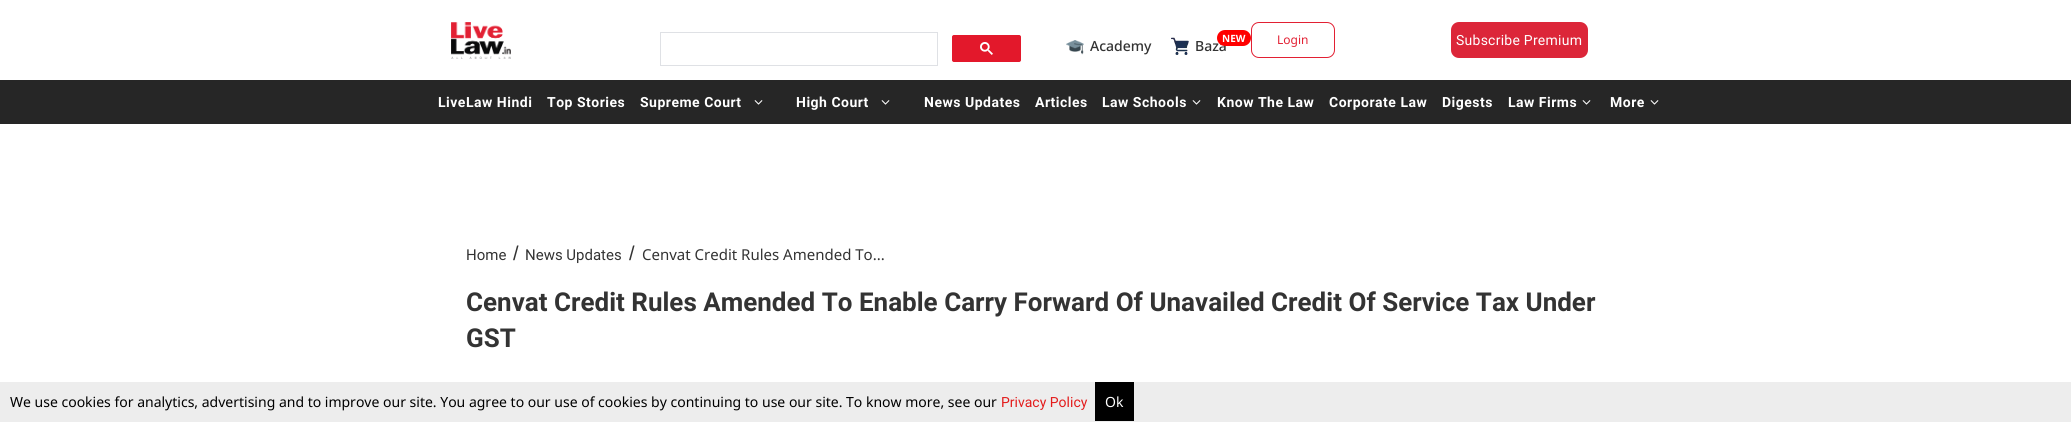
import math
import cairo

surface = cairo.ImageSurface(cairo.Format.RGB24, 2071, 422)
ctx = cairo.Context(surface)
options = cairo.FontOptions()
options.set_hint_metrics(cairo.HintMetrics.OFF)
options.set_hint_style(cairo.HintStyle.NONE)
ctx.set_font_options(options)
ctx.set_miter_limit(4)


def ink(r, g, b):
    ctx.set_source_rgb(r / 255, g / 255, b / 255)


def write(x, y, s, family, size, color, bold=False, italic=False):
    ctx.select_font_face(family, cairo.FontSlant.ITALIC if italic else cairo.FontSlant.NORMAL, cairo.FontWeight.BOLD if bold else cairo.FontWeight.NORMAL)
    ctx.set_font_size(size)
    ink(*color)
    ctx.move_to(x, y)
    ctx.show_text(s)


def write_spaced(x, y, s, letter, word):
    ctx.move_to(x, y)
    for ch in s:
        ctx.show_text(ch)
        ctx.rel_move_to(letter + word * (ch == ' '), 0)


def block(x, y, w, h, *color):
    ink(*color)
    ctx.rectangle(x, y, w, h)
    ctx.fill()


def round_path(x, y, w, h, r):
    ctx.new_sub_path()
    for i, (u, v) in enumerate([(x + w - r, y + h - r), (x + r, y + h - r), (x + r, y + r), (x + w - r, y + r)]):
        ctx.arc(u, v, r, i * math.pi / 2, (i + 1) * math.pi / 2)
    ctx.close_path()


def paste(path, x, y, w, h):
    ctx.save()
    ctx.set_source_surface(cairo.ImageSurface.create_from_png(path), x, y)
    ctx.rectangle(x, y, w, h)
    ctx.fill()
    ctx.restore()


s1 = dict(family="Noto Sans Medium", size=14, color=(51, 51, 51))
s2 = dict(family="Noto Sans", size=10, color=(255, 255, 255), bold=True)
s3 = dict(family="Noto Sans", size=12, color=(226, 32, 51))
s4 = dict(family="Roboto", size=15, color=(51, 51, 51))
s5 = dict(family="Liberation Sans", size=20, color=(51, 51, 51))
s6 = dict(family="Noto Sans", size=15, color=(51, 51, 51))
s7 = dict(family="Roboto", size=26, color=(51, 51, 51), bold=True)
s8 = dict(family="Noto Sans", size=14, color=(0, 0, 0))
s9 = dict(family="Roboto", size=14, color=(227, 27, 27))
s10 = dict(family="Noto Sans", size=14, color=(255, 255, 255))

ink(255, 255, 255)
ctx.paint()
paste("pic1.png", 451, 22, 60, 37)
ctx.rectangle(660.5, 32.5, 277, 33)
ink(223, 225, 229)
ctx.set_line_width(1)
ctx.stroke()
ink(227, 24, 43)
round_path(952.5, 35.5, 68, 26, 1.5)
ctx.fill_preserve()
ctx.stroke()
paste("pic2.png", 980, 42, 13, 13)
paste("pic3.png", 1066, 40, 18, 15)
write(1090, 51, "Academy", **s1)
paste("pic4.png", 1171, 37, 18, 18)
write(1195, 51, "Baza", **s1)
ink(255, 0, 0)
round_path(1217, 30, 34, 16, 8)
ctx.fill()
write(1222, 42, "NEW", **s2)
round_path(1251.5, 22.5, 83, 35, 7.5)
ink(226, 32, 51)
ctx.stroke()
write(1277, 44, "Login", **s3)
ink(220, 38, 57)
round_path(1451, 22, 137, 36, 8)
ctx.fill()
ctx.select_font_face("Roboto")
ctx.set_font_size(14)
ink(255, 255, 255)
write_spaced(1456, 45, "Subscribe Premium", 0.25, 0)
block(0, 80, 2071, 44, 38, 38, 38)
ctx.select_font_face("Roboto", cairo.FontSlant.NORMAL, cairo.FontWeight.BOLD)
ink(255, 255, 255)
write_spaced(438, 107, "LiveLaw Hindi", 0.5, 0)
write_spaced(547, 107, "Top Stories", 0.5, 0)
write_spaced(640, 107, "Supreme Court", 0.5, 0)
paste("pic5.png", 754, 100, 9, 5)
write_spaced(796, 107, "High Court", 0.5, 0)
paste("pic5.png", 881, 100, 9, 5)
write_spaced(924, 107, "News Updates", 0.5, 0)
write_spaced(1035, 107, "Articles", 0.5, 0)
write_spaced(1102, 107, "Law Schools", 0.5, 0)
paste("pic5.png", 1192, 100, 9, 5)
write_spaced(1217, 107, "Know The Law", 0.5, 0)
write_spaced(1329, 107, "Corporate Law", 0.5, 0)
write_spaced(1442, 107, "Digests", 0.5, 0)
write_spaced(1508, 107, "Law Firms", 0.5, 0)
paste("pic5.png", 1582, 100, 9, 5)
write_spaced(1610, 107, "More", 0.5, 0)
paste("pic5.png", 1650, 100, 9, 5)
write(466, 260, "Home", **s4)
write(513, 260, "/", **s5)
write(525, 260, "News Updates", **s4)
write(629, 260, "/", **s5)
write(642, 260, "Cenvat Credit Rules Amended To...", **s6)
write(466, 311, "Cenvat Credit Rules Amended To Enable Carry Forward Of Unavailed Credit Of Service Tax Under", **s7)
write(466, 347, "GST", **s7)
block(0, 382, 2071, 40, 237, 237, 237)
write(10, 407, "We use cookies for analytics, advertising and to improve our site. You agree to our use of cookies by continuing to use our site. To know more, see our", **s8)
write(1001, 407, "Privacy Policy", **s9)
block(1095, 382, 39, 39, 0, 0, 0)
write(1105, 407, "Ok", **s10)
surface.write_to_png("screenshot.png")
